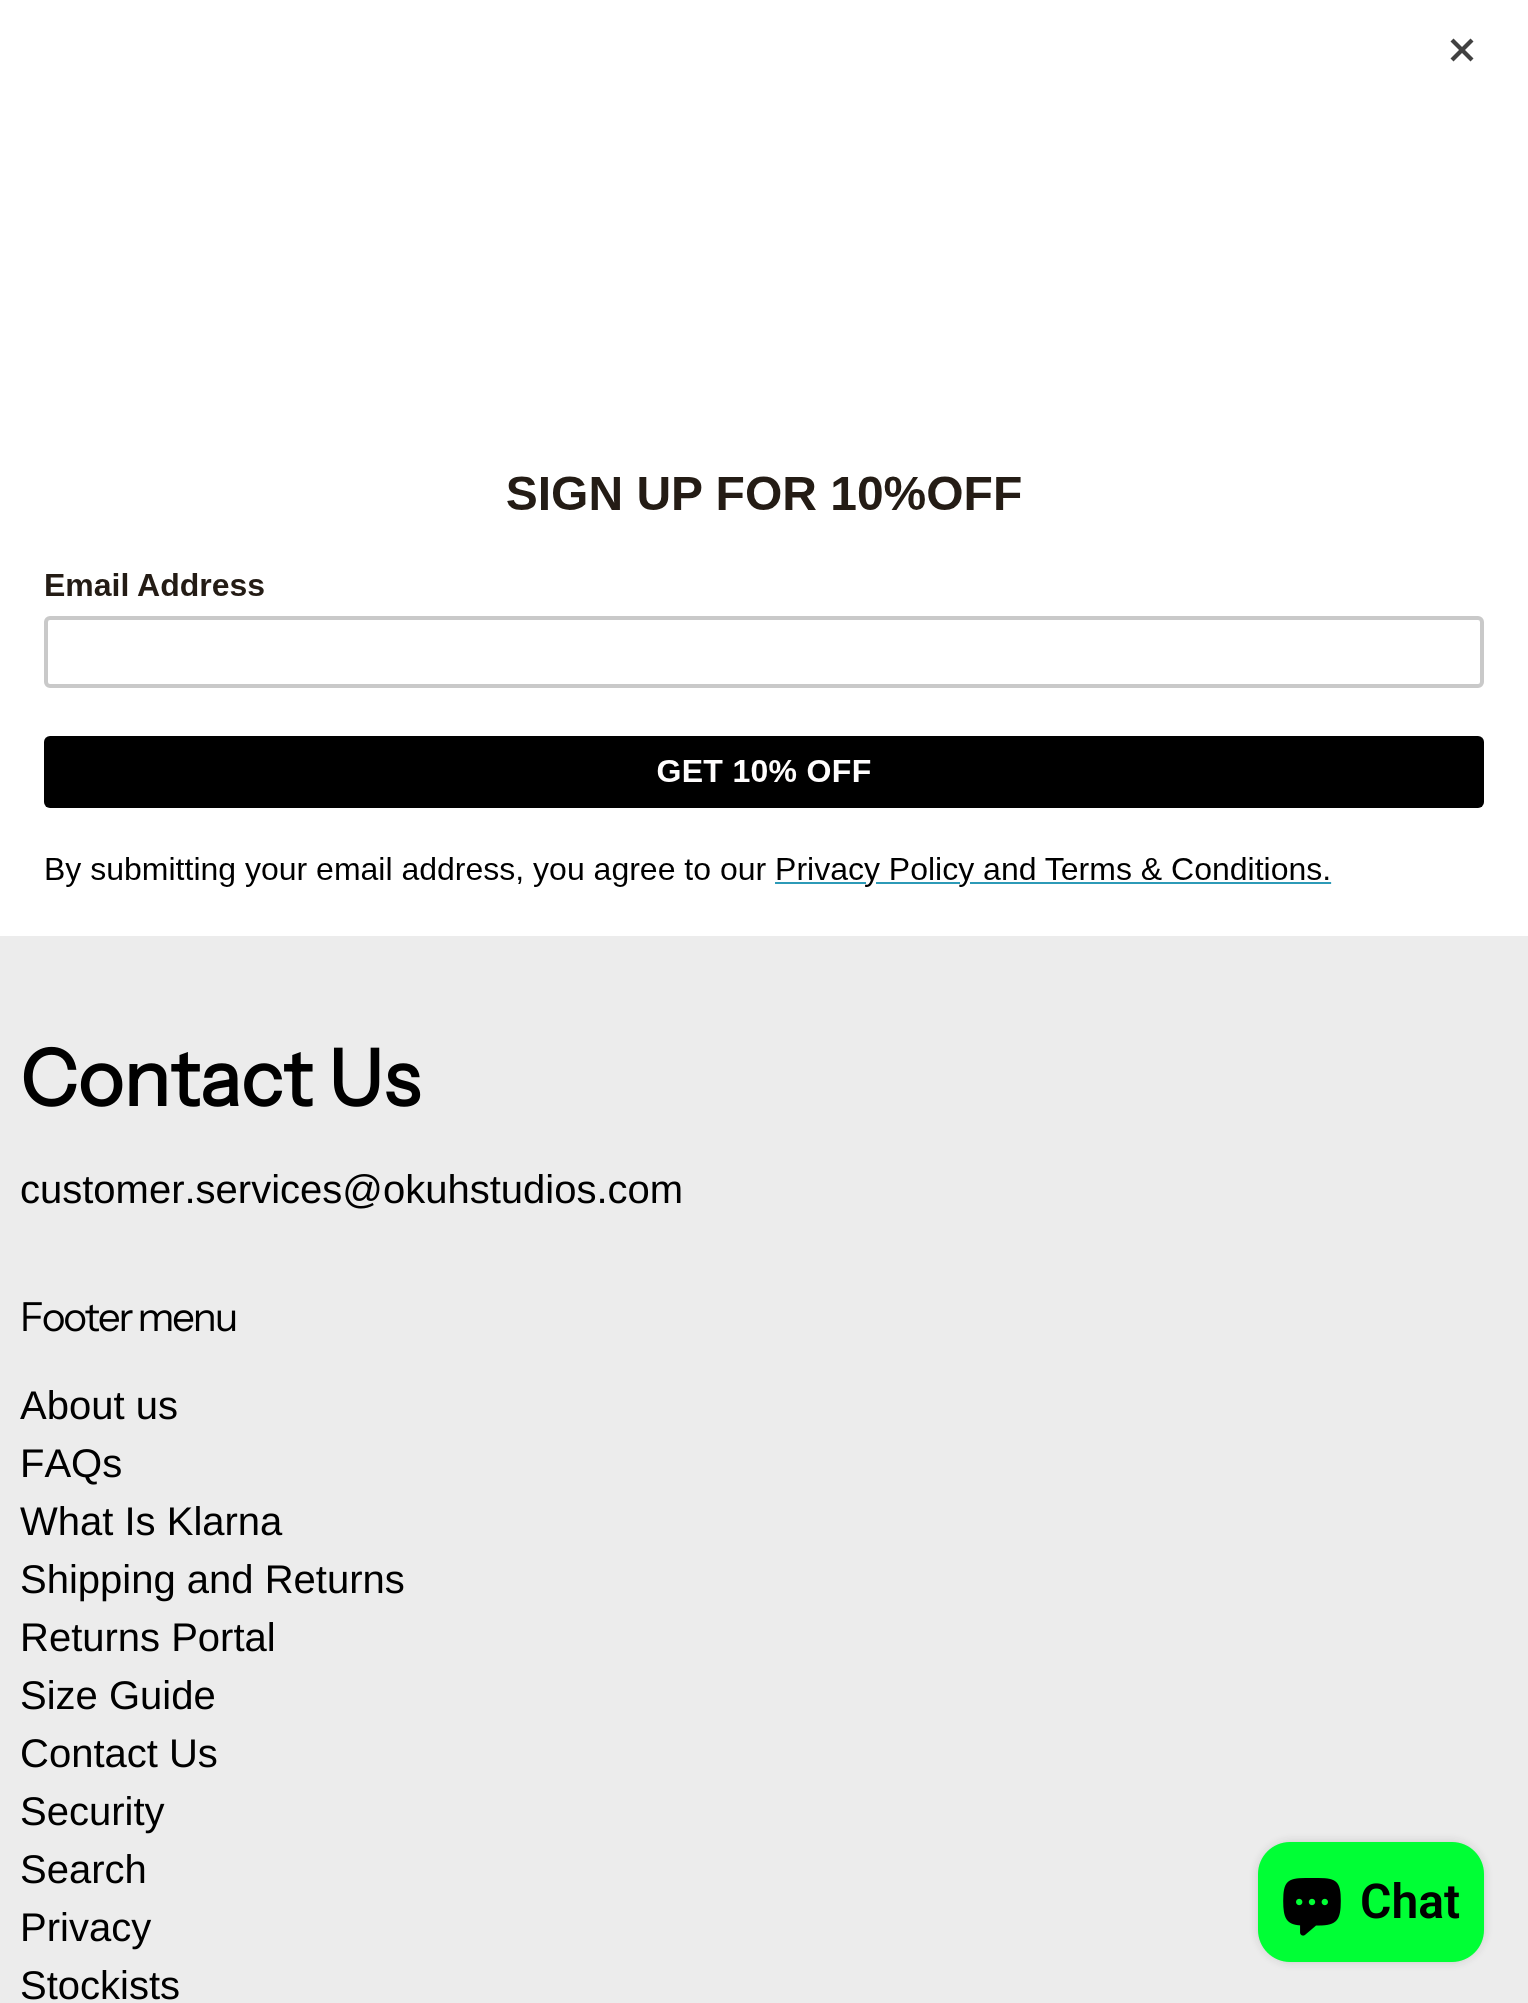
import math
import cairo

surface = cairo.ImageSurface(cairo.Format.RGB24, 1528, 2003)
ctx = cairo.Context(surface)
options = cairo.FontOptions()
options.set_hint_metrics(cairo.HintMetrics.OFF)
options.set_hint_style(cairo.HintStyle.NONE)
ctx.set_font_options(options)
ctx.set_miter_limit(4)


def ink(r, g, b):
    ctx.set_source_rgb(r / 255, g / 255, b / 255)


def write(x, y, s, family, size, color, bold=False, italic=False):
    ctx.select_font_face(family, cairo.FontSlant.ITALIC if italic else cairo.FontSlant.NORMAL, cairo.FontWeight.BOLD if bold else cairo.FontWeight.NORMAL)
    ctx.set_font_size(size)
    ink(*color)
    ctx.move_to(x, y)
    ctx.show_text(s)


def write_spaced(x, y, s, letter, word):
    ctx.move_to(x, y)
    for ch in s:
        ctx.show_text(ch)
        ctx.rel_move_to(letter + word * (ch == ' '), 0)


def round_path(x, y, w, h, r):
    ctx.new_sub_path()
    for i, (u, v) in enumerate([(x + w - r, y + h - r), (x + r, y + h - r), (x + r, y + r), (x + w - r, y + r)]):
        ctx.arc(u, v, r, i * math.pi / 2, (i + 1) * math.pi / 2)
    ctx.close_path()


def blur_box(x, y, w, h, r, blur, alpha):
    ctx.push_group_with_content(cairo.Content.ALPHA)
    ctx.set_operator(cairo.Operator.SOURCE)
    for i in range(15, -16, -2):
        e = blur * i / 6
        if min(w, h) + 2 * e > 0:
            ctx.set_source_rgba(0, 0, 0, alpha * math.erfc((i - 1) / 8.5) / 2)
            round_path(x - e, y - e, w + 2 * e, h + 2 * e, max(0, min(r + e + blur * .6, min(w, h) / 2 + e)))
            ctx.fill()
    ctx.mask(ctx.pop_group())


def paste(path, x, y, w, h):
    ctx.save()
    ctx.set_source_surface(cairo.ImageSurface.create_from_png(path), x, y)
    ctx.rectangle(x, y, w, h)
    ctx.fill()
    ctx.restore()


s1 = dict(family="Instrument Sans", size=78, color=(0, 0, 0), bold=True)
s2 = dict(family="Liberation Sans", size=40, color=(0, 0, 0))
s3 = dict(family="Roboto SemiBold", size=48, color=(0, 0, 0))

ink(236, 236, 236)
ctx.paint()
paste("pic1.png", 0, 0, 1528, 936)
ink(65, 65, 65)
ctx.new_path()
ctx.move_to(1470.5, 38.5)
ctx.line_to(1473.5, 41.5)
ctx.line_to(1453.5, 61.5)
ctx.line_to(1450.5, 58.5)
ctx.close_path()
ctx.fill()
ctx.new_path()
ctx.move_to(1450.5, 41.5)
ctx.line_to(1453.5, 38.5)
ctx.line_to(1473.5, 58.5)
ctx.line_to(1470.5, 61.5)
ctx.close_path()
ctx.fill()
write(20, 1106, "Contact Us", **s1)
write(20, 1203, "customer.services@okuhstudios.com", **s2)
ctx.select_font_face("Instrument Sans")
write_spaced(20, 1331, "Footer menu", -2, 0)
write(20, 1419, "About us", **s2)
write(20, 1477, "FAQs", **s2)
write(20, 1535, "What Is Klarna", **s2)
write(20, 1593, "Shipping and Returns", **s2)
write(20, 1651, "Returns Portal", **s2)
write(20, 1709, "Size Guide", **s2)
write(20, 1767, "Contact Us", **s2)
write(20, 1825, "Security", **s2)
write(20, 1883, "Search", **s2)
write(20, 1941, "Privacy", **s2)
write(20, 1999, "Stockists", **s2)
ink(0, 0, 0)
blur_box(1258, 1842, 226, 120, 32, 5, 0.15)
ink(0, 255, 53)
round_path(1258, 1842, 226, 120, 32)
ctx.fill()
paste("pic2.png", 1283, 1878, 58, 58)
write(1360, 1918, "Chat", **s3)
surface.write_to_png("screenshot.png")
